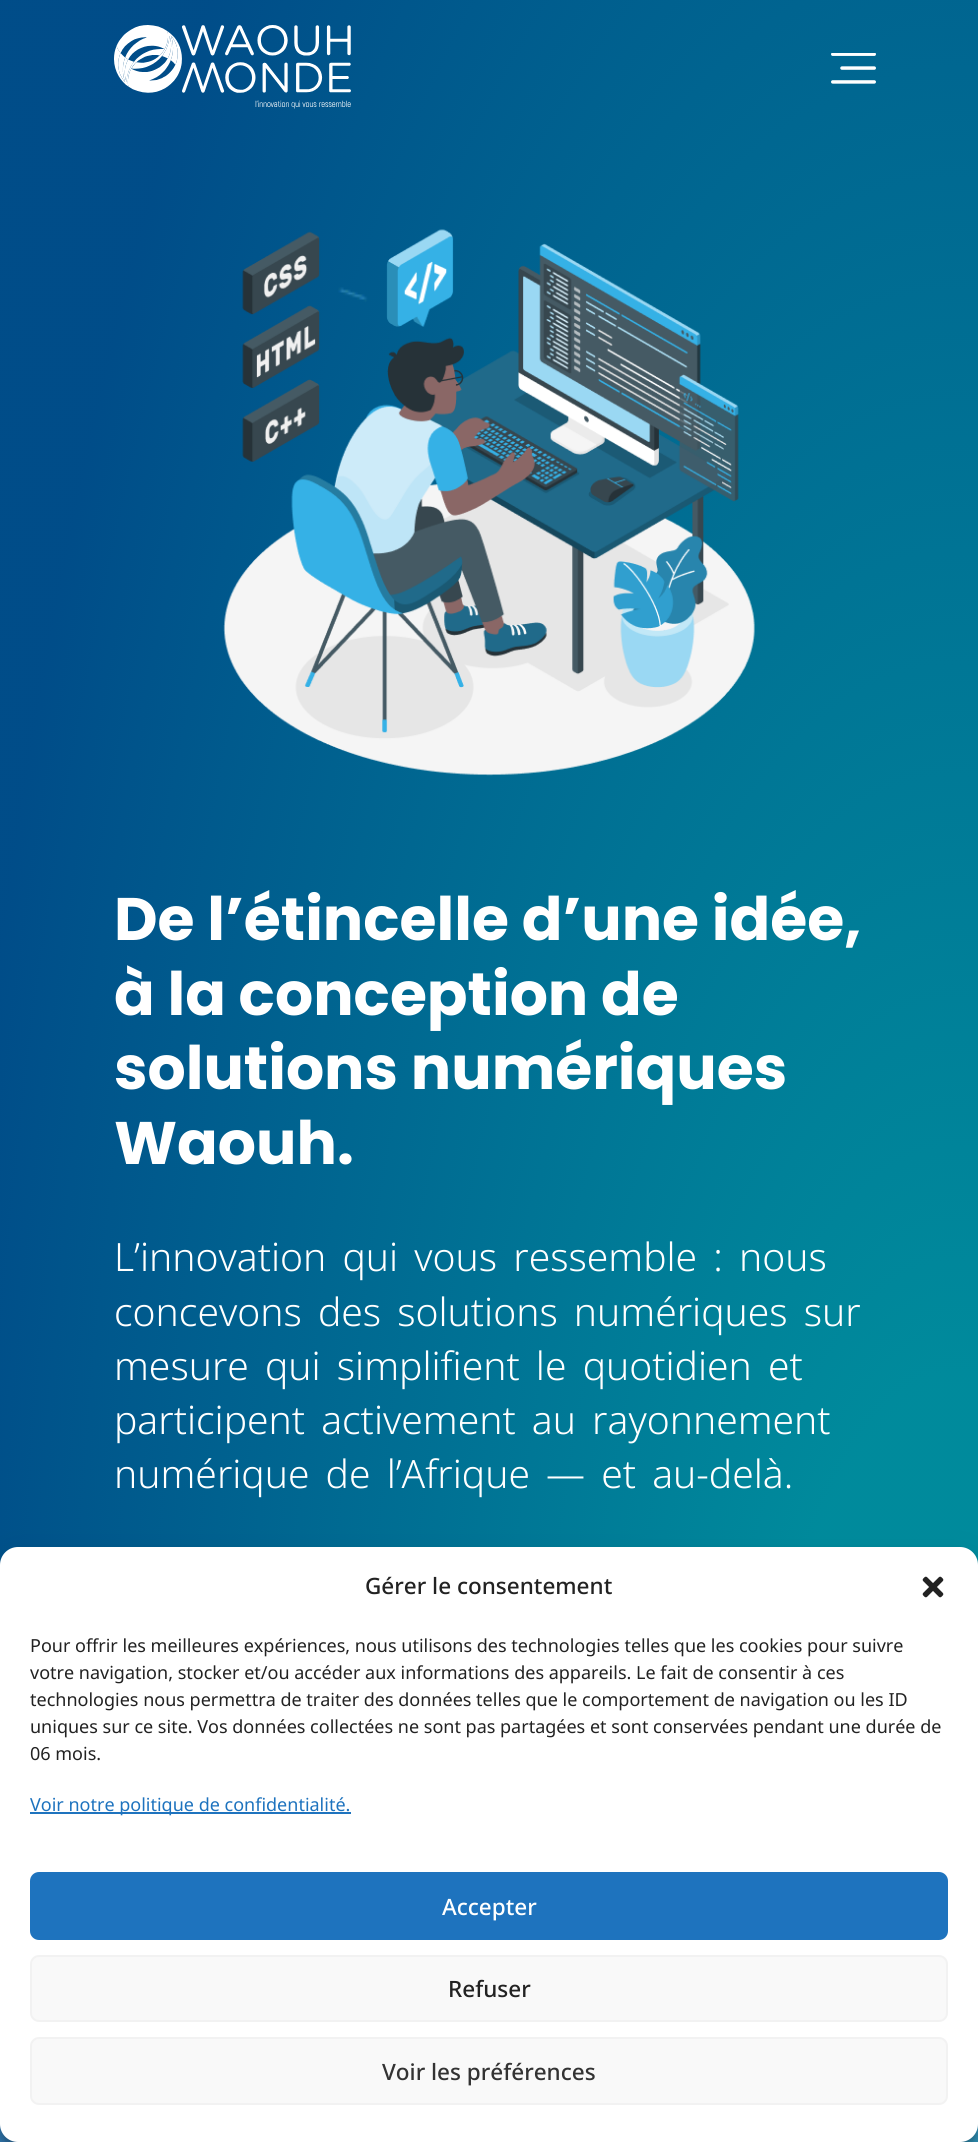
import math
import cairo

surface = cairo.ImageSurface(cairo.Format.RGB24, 978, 2142)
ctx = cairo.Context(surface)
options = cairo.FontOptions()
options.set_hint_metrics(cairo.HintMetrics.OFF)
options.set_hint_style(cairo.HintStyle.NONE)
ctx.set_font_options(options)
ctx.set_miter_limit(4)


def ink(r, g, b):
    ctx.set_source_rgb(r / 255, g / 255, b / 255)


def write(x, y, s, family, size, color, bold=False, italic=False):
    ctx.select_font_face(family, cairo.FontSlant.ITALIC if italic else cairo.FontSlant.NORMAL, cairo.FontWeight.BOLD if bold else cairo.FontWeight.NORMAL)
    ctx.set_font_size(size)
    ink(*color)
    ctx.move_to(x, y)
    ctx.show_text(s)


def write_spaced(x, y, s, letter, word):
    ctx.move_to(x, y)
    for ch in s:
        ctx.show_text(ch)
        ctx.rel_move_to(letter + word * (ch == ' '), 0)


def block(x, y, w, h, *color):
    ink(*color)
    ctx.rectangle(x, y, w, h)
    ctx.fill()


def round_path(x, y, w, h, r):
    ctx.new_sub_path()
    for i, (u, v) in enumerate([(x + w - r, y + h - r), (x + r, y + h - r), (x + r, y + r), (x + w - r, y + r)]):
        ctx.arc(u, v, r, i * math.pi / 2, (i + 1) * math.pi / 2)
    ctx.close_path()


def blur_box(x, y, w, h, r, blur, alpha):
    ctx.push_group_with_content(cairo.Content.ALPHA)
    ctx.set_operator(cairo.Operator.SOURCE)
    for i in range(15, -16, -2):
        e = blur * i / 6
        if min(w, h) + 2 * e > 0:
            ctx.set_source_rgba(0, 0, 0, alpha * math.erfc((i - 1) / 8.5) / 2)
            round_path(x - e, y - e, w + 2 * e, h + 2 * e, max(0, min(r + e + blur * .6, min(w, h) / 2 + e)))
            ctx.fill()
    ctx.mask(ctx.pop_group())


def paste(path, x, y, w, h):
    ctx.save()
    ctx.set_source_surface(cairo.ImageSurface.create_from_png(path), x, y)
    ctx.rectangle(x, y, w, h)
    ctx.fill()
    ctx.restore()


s1 = dict(family="Poppins", size=60, color=(255, 255, 255), bold=True)
s2 = dict(family="Noto Sans Medium", size=22.5, color=(34, 34, 34))
s3 = dict(family="Noto Sans", size=18, color=(34, 34, 34))
s4 = dict(family="Noto Sans", size=18, color=(30, 115, 190))
s5 = dict(family="Noto Sans Medium", size=22.5, color=(255, 255, 255))
s6 = dict(family="Noto Sans Medium", size=22.5, color=(51, 51, 51))

ink(255, 255, 255)
ctx.paint()
paste("pic1.png", 0, 0, 978, 2142)
paste("pic2.png", 114, 25, 237, 84)
paste("pic3.png", 831, 53, 45, 31)
paste("pic4.png", 223, 229, 532, 547)
write(114, 940, "De l’étincelle d’une idée,", **s1)
write(114, 1015, "à la conception de", **s1)
write(114, 1089, "solutions numériques", **s1)
write(114, 1164, "Waouh.", **s1)
ctx.select_font_face("Noto Sans Light")
ctx.set_font_size(39)
write_spaced(114, 1271, "L’innovation qui vous ressemble : nous", 0, 6)
write_spaced(114, 1326, "concevons des solutions numériques sur", 0, 6)
write_spaced(114, 1380, "mesure qui simplifient le quotidien et", 0, 6)
write_spaced(114, 1434, "participent activement au rayonnement", 0, 6)
write_spaced(114, 1488, "numérique de l’Afrique — et au-delà.", 0, 6)
ink(0, 0, 0)
blur_box(0, 1556, 978, 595, 18, 4.5, 0.23)
blur_box(0, 1562, 978, 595, 18, 15, 0.19)
ink(255, 255, 255)
round_path(0, 1547, 978, 595, 18)
ctx.fill()
write(365, 1594, "Gérer le consentement", **s2)
paste("pic5.png", 922, 1576, 22, 22)
write(30, 1652, "Pour offrir les meilleures expériences, nous utilisons des technologies telles que les cookies pour suivre", **s3)
write(30, 1679, "votre navigation, stocker et/ou accéder aux informations des appareils. Le fait de consentir à ces", **s3)
write(30, 1706, "technologies nous permettra de traiter des données telles que le comportement de navigation ou les ID", **s3)
write(30, 1733, "uniques sur ce site. Vos données collectées ne sont pas partagées et sont conservées pendant une durée de", **s3)
write(30, 1760, "06 mois.", **s3)
block(30, 1812, 321, 2, 30, 115, 190)
write(30, 1811, "Voir notre politique de confidentialité.", **s4)
round_path(31, 1873, 916, 66, 8)
ctx.fill_preserve()
ctx.stroke()
write(442, 1915, "Accepter", **s5)
ink(249, 249, 249)
round_path(31, 1956, 916, 65, 8)
ctx.fill_preserve()
ink(242, 242, 242)
ctx.stroke()
write(448, 1997, "Refuser", **s2)
ink(249, 249, 249)
round_path(31, 2038, 916, 66, 8)
ctx.fill_preserve()
ink(242, 242, 242)
ctx.stroke()
write(382, 2080, "Voir les préférences", **s6)
surface.write_to_png("screenshot.png")
